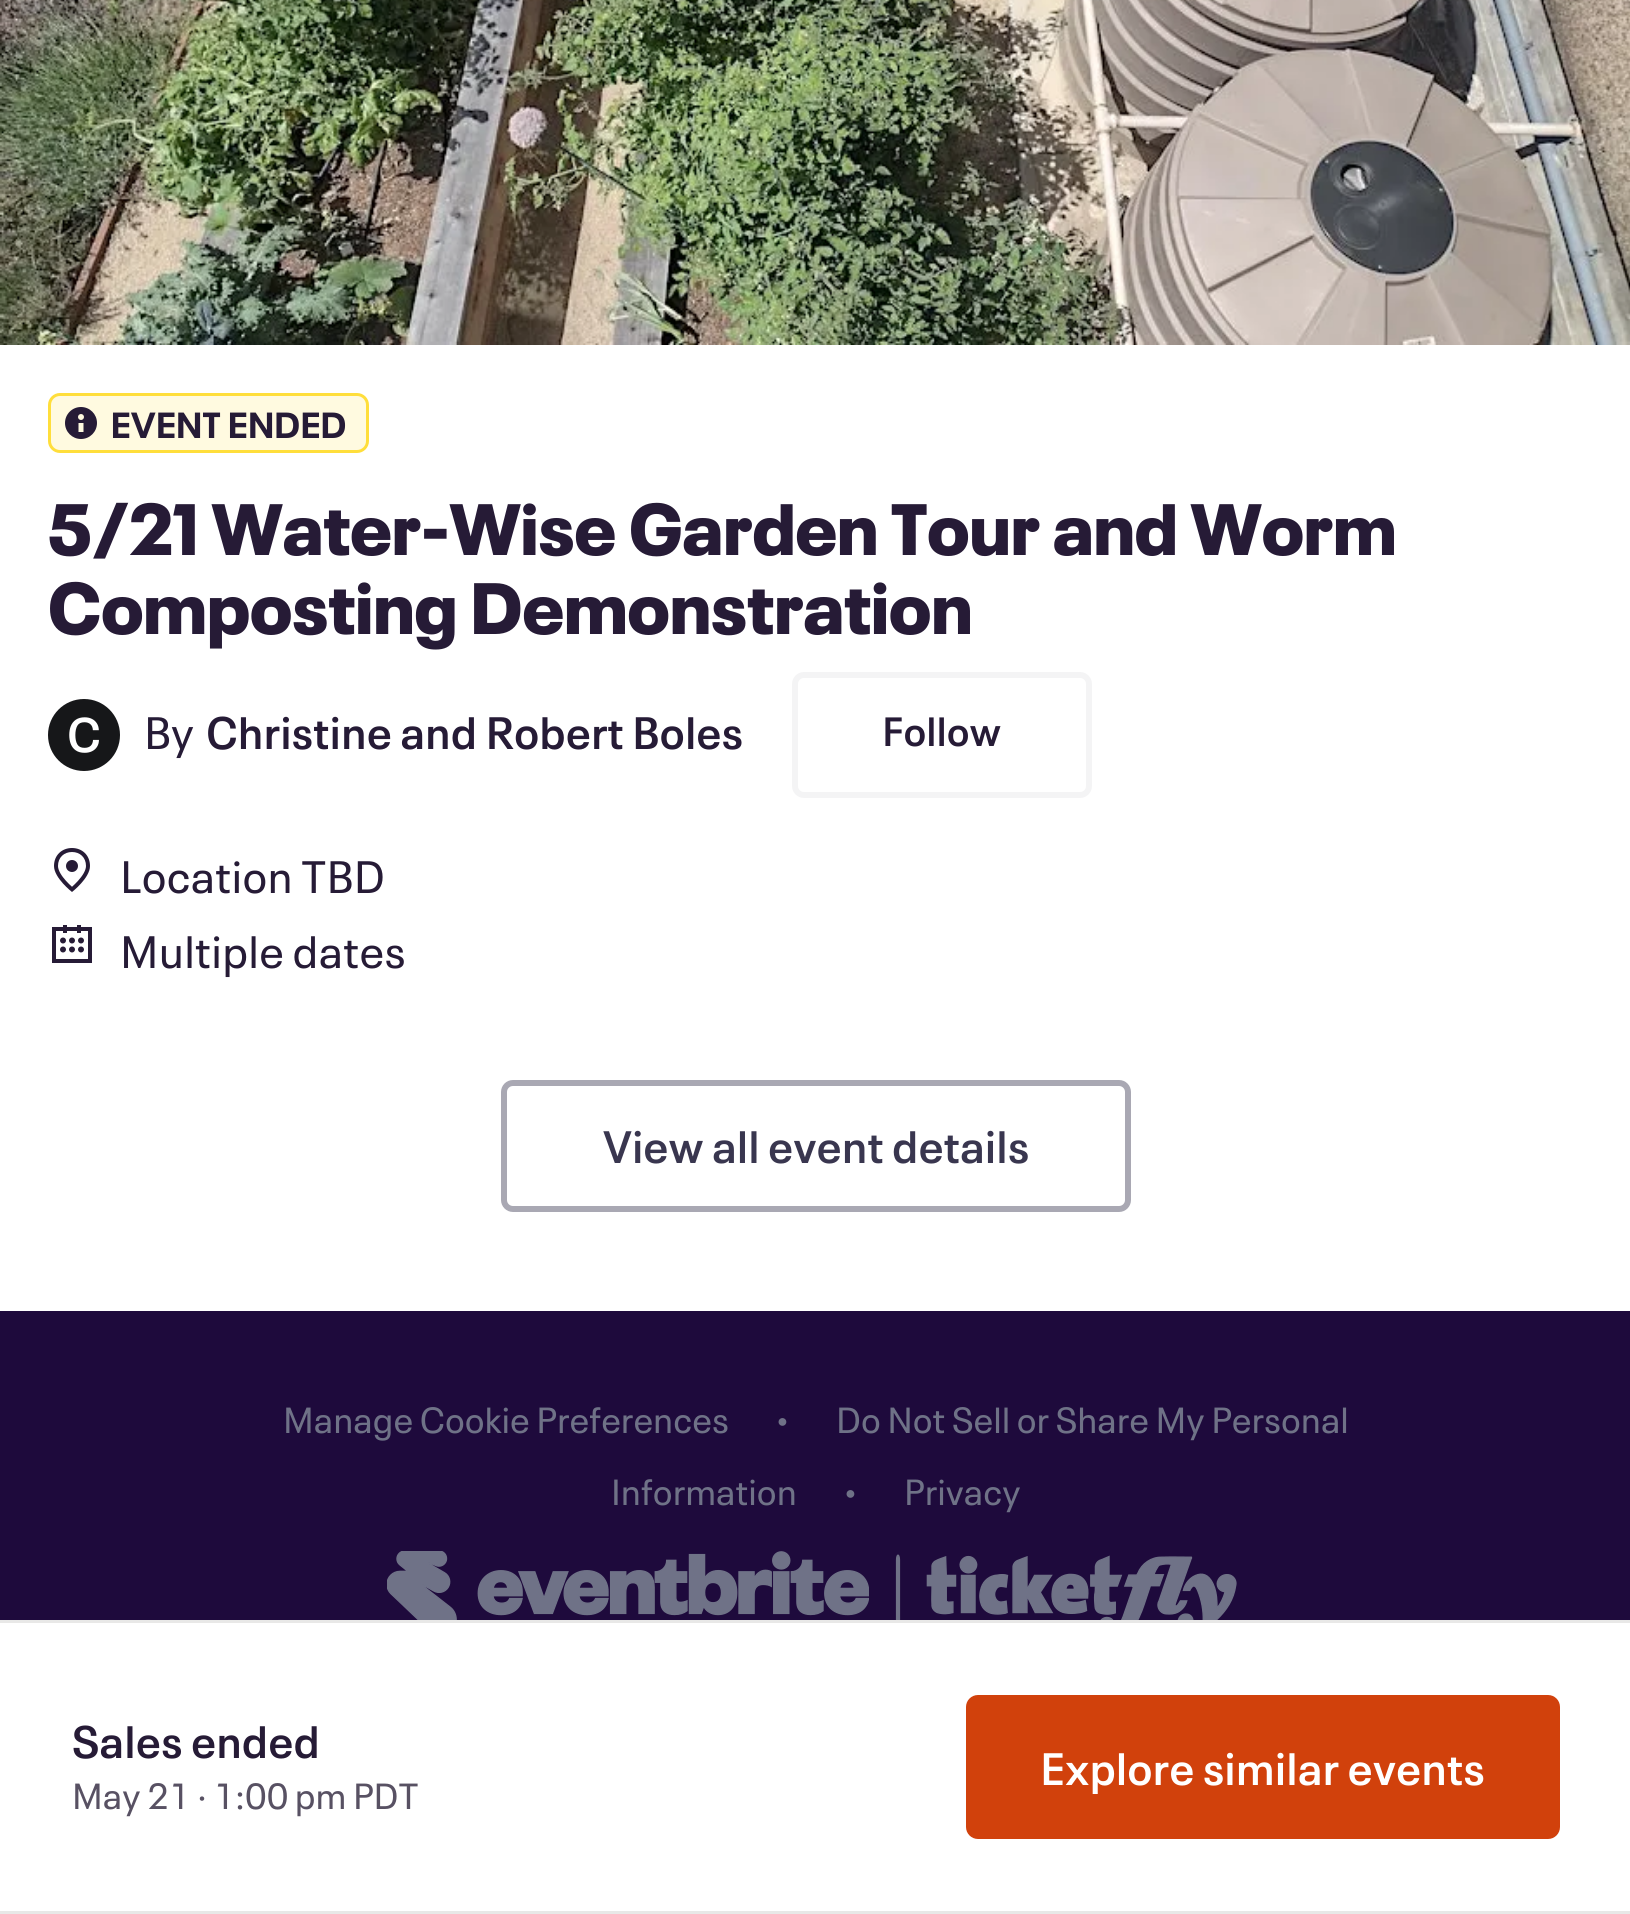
import math
import cairo

surface = cairo.ImageSurface(cairo.Format.RGB24, 1630, 1914)
ctx = cairo.Context(surface)
options = cairo.FontOptions()
options.set_hint_metrics(cairo.HintMetrics.OFF)
options.set_hint_style(cairo.HintStyle.NONE)
ctx.set_font_options(options)
ctx.set_miter_limit(4)


def ink(r, g, b):
    ctx.set_source_rgb(r / 255, g / 255, b / 255)


def write(x, y, s, family, size, color, bold=False, italic=False):
    ctx.select_font_face(family, cairo.FontSlant.ITALIC if italic else cairo.FontSlant.NORMAL, cairo.FontWeight.BOLD if bold else cairo.FontWeight.NORMAL)
    ctx.set_font_size(size)
    ink(*color)
    ctx.move_to(x, y)
    ctx.show_text(s)


def write_spaced(x, y, s, letter, word):
    ctx.move_to(x, y)
    for ch in s:
        ctx.show_text(ch)
        ctx.rel_move_to(letter + word * (ch == ' '), 0)


def block(x, y, w, h, *color):
    ink(*color)
    ctx.rectangle(x, y, w, h)
    ctx.fill()


def round_path(x, y, w, h, r):
    ctx.new_sub_path()
    for i, (u, v) in enumerate([(x + w - r, y + h - r), (x + r, y + h - r), (x + r, y + r), (x + w - r, y + r)]):
        ctx.arc(u, v, r, i * math.pi / 2, (i + 1) * math.pi / 2)
    ctx.close_path()


def paste(path, x, y, w, h):
    ctx.save()
    ctx.set_source_surface(cairo.ImageSurface.create_from_png(path), x, y)
    ctx.rectangle(x, y, w, h)
    ctx.fill()
    ctx.restore()


s1 = dict(family="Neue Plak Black", size=72, color=(38, 27, 54))
s2 = dict(family="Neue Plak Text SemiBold", size=48, color=(255, 255, 255))
s3 = dict(family="Neue Plak Text", size=45, color=(38, 27, 54))
s4 = dict(family="Neue Plak Text SemiBold", size=45, color=(38, 27, 54))
s5 = dict(family="Neue Plak Text SemiBold", size=40.5, color=(38, 27, 54))
s6 = dict(family="Neue Plak Text SemiBold", size=45, color=(57, 54, 79))
s7 = dict(family="Neue Plak Text", size=36, color=(88, 81, 99))
s8 = dict(family="Neue Plak Text SemiBold", size=45, color=(255, 255, 255))
s9 = dict(family="Neue Plak Text", size=36, color=(111, 114, 135))
s10 = dict(family="Liberation Sans", size=18, color=(111, 114, 135))

ink(255, 255, 255)
ctx.paint()
paste("pic1.png", 0, 0, 1630, 345)
ink(255, 250, 224)
round_path(49.5, 394.5, 318, 57, 10.5)
ctx.fill_preserve()
ink(255, 222, 59)
ctx.set_line_width(3)
ctx.stroke()
paste("pic2.png", 65, 407, 32, 32)
ctx.select_font_face("Neue Plak", cairo.FontSlant.NORMAL, cairo.FontWeight.BOLD)
ctx.set_font_size(36)
ink(38, 27, 54)
write_spaced(111, 438, "EVENT ENDED", 0.6, 0)
write(48, 555, "5/21 Water-Wise Garden Tour and Worm", **s1)
write(48, 634, "Composting Demonstration", **s1)
ink(22, 23, 25)
ctx.new_path()
ctx.arc(84, 735, 36, 0, 2 * math.pi)
ctx.fill()
write(67, 752, "C", **s2)
write(144, 749, "By", **s3)
write(206, 749, "Christine and Robert Boles", **s4)
round_path(795, 675, 294, 120, 9)
ink(244, 244, 245)
ctx.set_line_width(6)
ctx.stroke()
write(882, 746, "Follow", **s5)
paste("pic3.png", 54, 848, 36, 44)
ctx.select_font_face("Neue Plak Text")
ctx.set_font_size(45)
write_spaced(120, 893, "Location TBD", 0.25, 0)
paste("pic4.png", 52, 925, 40, 38)
write_spaced(120, 968, "Multiple dates", 0.25, 0)
round_path(504, 1083, 624, 126, 9)
ink(169, 168, 179)
ctx.stroke()
write(603, 1163, "View all event details", **s6)
block(0, 1620, 1630, 3, 232, 232, 231)
block(0, 1911, 1630, 3, 232, 232, 231)
write(72, 1758, "Sales ended", **s4)
write(72, 1809, "May 21 · 1:00 pm PDT", **s7)
ink(209, 65, 12)
round_path(966, 1695, 594, 144, 12)
ctx.fill()
write(1040, 1785, "Explore similar events", **s8)
block(0, 1311, 1630, 309, 30, 10, 60)
write(283, 1433, "Manage Cookie Preferences", **s9)
write(777, 1427, "●", **s10)
write(836, 1433, "Do Not Sell or Share My Personal", **s9)
write(611, 1505, "Information", **s9)
write(845, 1499, "●", **s10)
write(904, 1505, "Privacy", **s9)
paste("pic5.png", 387, 1551, 850, 69)
surface.write_to_png("screenshot.png")
